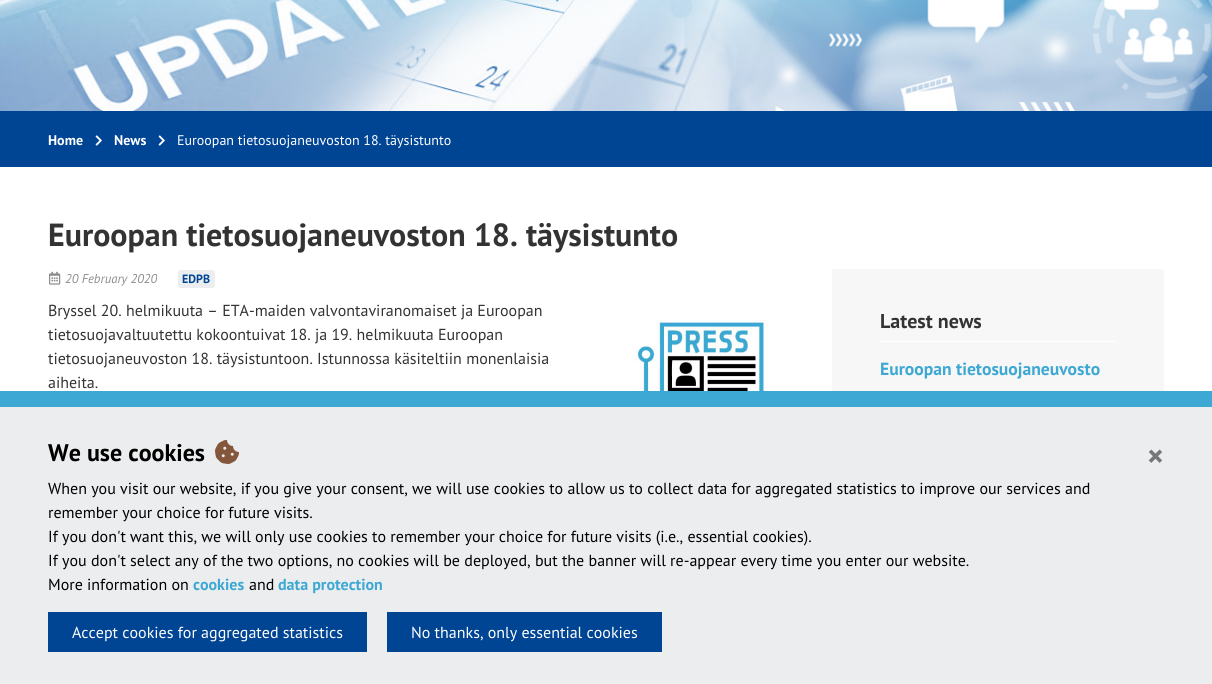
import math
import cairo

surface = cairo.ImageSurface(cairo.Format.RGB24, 1212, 684)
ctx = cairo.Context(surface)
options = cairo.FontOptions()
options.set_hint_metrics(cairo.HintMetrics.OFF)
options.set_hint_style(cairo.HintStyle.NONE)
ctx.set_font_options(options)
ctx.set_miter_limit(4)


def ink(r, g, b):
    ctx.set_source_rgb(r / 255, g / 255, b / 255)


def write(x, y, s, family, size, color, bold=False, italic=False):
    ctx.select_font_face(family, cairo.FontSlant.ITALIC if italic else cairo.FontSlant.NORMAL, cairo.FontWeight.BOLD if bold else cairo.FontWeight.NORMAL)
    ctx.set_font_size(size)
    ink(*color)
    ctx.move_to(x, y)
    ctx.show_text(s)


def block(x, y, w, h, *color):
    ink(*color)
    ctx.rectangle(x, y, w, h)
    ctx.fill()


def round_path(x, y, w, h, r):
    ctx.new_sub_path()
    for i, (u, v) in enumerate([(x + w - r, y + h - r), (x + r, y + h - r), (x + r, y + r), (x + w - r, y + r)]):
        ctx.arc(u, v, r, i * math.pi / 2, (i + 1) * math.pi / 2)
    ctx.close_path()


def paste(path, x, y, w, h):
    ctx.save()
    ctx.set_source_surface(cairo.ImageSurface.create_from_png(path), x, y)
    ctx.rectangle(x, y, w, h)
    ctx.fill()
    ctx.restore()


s1 = dict(family="PT Sans", size=14, color=(255, 255, 255), bold=True)
s2 = dict(family="PT Sans", size=14, color=(255, 255, 255))
s3 = dict(family="PT Sans", size=32, color=(51, 51, 51), bold=True)
s4 = dict(family="PT Sans", size=12.75, color=(140, 140, 140), italic=True)
s5 = dict(family="PT Sans", size=12, color=(0, 68, 148), bold=True)
s6 = dict(family="PT Sans", size=16, color=(51, 51, 51))
s7 = dict(family="PT Sans", size=20, color=(51, 51, 51), bold=True)
s8 = dict(family="PT Sans", size=17.6, color=(60, 168, 211), bold=True)
s9 = dict(family="PT Sans", size=24, color=(0, 0, 0), bold=True)
s10 = dict(family="PT Sans", size=32, color=(118, 119, 119), bold=True)
s11 = dict(family="PT Sans", size=16, color=(0, 0, 0))
s12 = dict(family="PT Sans", size=16, color=(60, 168, 211), bold=True)
s13 = dict(family="PT Sans", size=16, color=(255, 255, 255))

ink(255, 255, 255)
ctx.paint()
paste("pic1.png", 0, 0, 1212, 111)
block(0, 111, 1212, 56, 0, 68, 148)
write(48, 145, "Home", **s1)
paste("pic2.png", 95, 135, 7, 11)
write(114, 145, "News", **s1)
paste("pic2.png", 158, 135, 7, 11)
write(177, 145, "Euroopan tietosuojaneuvoston 18. täysistunto", **s2)
write(48, 246, "Euroopan tietosuojaneuvoston 18. täysistunto", **s3)
paste("pic3.png", 49, 271, 12, 14)
write(65, 283, "20 February 2020", **s4)
ink(236, 237, 238)
round_path(178, 270, 37, 18, 3)
ctx.fill()
write(182, 283, "EDPB", **s5)
write(48, 316, "Bryssel 20. helmikuuta – ETA-maiden valvontaviranomaiset ja Euroopan", **s6)
write(48, 340, "tietosuojavaltuutettu kokoontuivat 18. ja 19. helmikuuta Euroopan", **s6)
write(48, 364, "tietosuojaneuvoston 18. täysistuntoon. Istunnossa käsiteltiin monenlaisia", **s6)
write(48, 388, "aiheita.", **s6)
paste("pic4.png", 635, 319, 138, 72)
block(832, 269, 332, 122, 247, 247, 247)
block(880, 341, 236, 1, 255, 255, 255)
write(880, 328, "Latest news", **s7)
write(880, 375, "Euroopan tietosuojaneuvosto", **s8)
block(0, 407, 1212, 277, 236, 237, 238)
block(0, 391, 1212, 16, 60, 168, 211)
write(48, 461, "We use cookies", **s9)
paste("pic5.png", 215, 440, 24, 24)
write(1147, 467, "×", **s10)
write(48, 494, "When you visit our website, if you give your consent, we will use cookies to allow us to collect data for aggregated statistics to improve our services and", **s11)
write(48, 518, "remember your choice for future visits.", **s11)
write(48, 542, "If you don't want this, we will only use cookies to remember your choice for future visits (i.e., essential cookies).", **s11)
write(48, 566, "If you don't select any of the two options, no cookies will be deployed, but the banner will re-appear every time you enter our website.", **s11)
write(48, 590, "More information on", **s11)
write(193, 590, "cookies", **s12)
write(249, 590, "and", **s11)
write(278, 590, "data protection", **s12)
block(48, 612, 319, 40, 0, 68, 148)
write(72, 638, "Accept cookies for aggregated statistics", **s13)
block(387, 612, 275, 40, 0, 68, 148)
write(411, 638, "No thanks, only essential cookies", **s13)
surface.write_to_png("screenshot.png")
